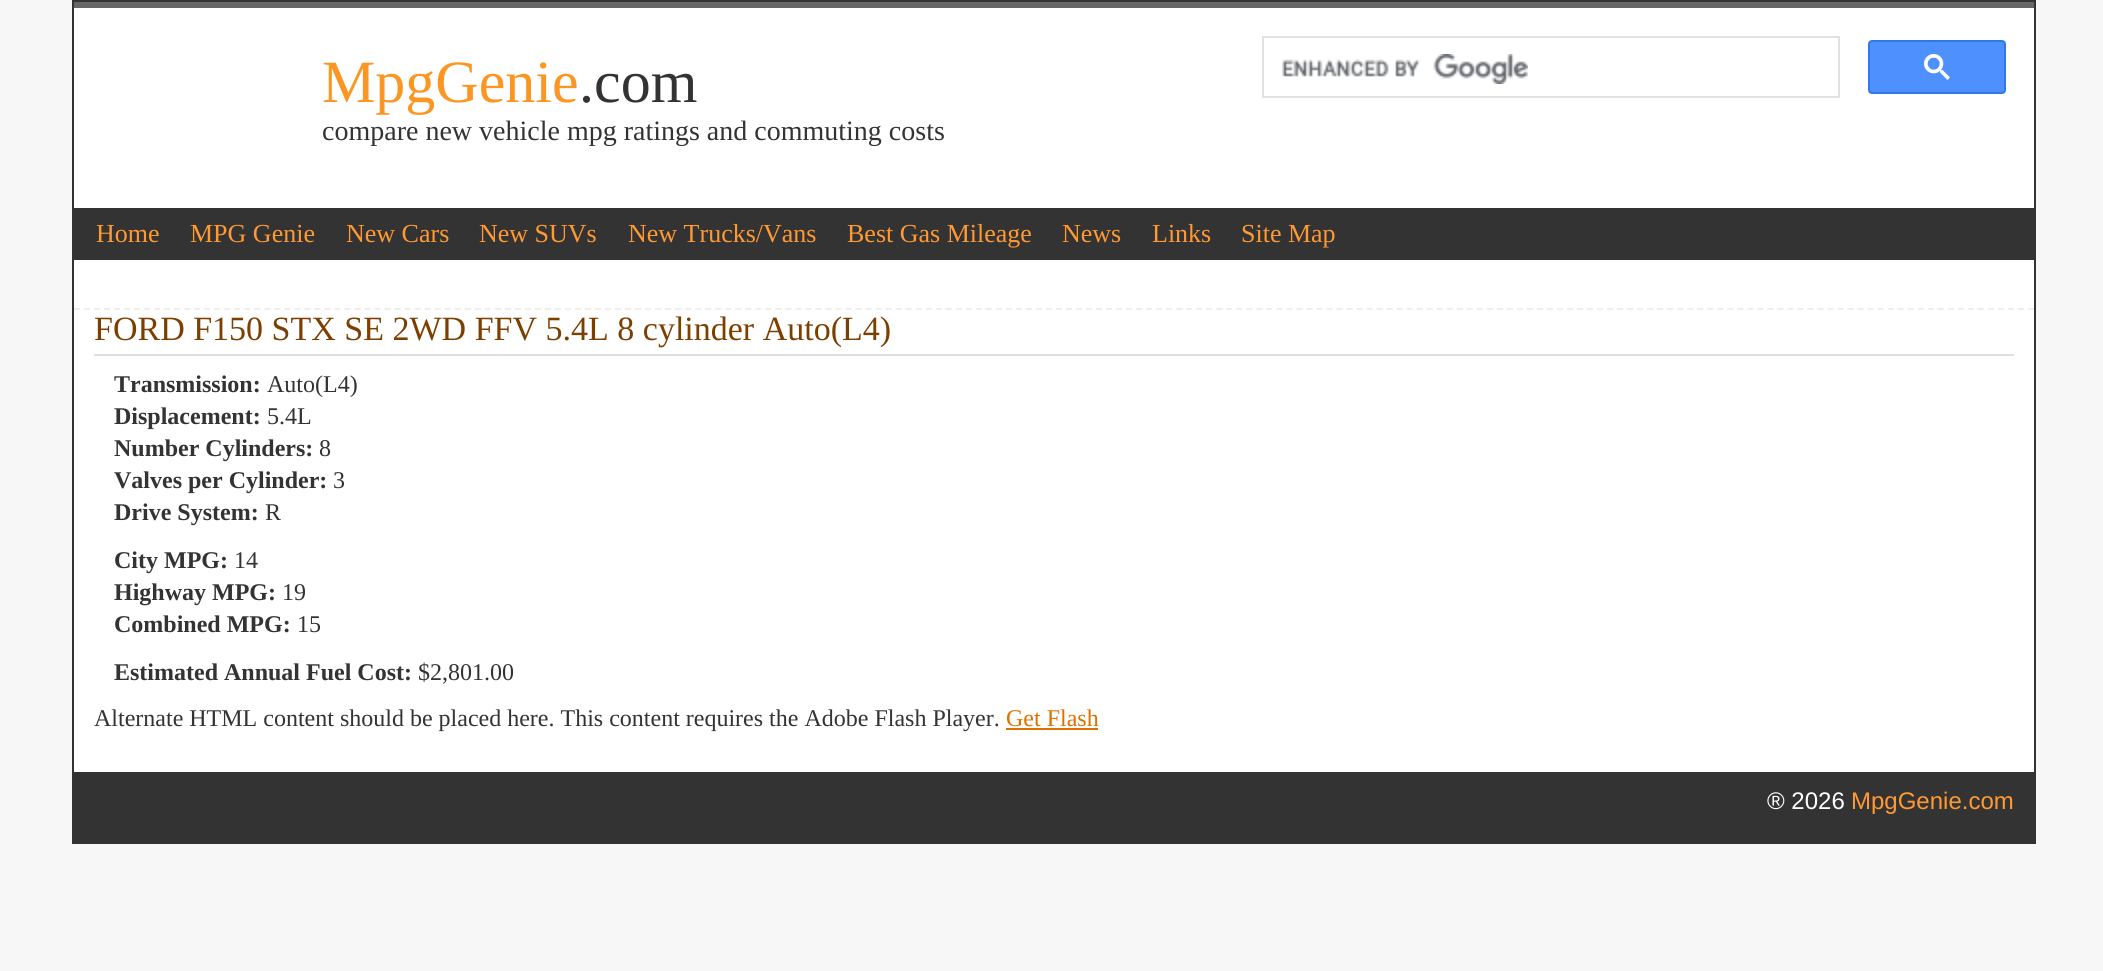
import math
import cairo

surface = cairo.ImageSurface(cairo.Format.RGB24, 2103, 971)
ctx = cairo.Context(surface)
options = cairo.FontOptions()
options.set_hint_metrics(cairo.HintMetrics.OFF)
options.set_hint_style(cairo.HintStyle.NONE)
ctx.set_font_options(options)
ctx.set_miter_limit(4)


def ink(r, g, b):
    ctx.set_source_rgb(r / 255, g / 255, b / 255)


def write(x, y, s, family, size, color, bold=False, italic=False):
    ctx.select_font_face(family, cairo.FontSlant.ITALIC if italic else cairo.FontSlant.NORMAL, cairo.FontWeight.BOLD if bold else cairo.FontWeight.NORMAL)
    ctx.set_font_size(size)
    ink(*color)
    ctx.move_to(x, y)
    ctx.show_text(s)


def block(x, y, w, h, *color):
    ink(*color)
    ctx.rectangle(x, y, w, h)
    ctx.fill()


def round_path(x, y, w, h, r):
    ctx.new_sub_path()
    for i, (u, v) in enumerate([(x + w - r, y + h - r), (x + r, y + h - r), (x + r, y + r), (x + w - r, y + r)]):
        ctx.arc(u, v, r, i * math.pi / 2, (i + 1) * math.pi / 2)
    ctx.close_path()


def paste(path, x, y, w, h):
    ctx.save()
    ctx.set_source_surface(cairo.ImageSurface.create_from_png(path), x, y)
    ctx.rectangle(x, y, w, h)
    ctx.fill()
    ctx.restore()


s1 = dict(family="Liberation Serif", size=60, color=(251, 150, 34))
s2 = dict(family="Liberation Serif", size=60, color=(51, 51, 51))
s3 = dict(family="Liberation Serif", size=28, color=(51, 51, 51))
s4 = dict(family="Liberation Serif", size=26, color=(255, 153, 51))
s5 = dict(family="Liberation Serif", size=34, color=(125, 63, 0))
s6 = dict(family="Liberation Serif", size=24, color=(51, 51, 51), bold=True)
s7 = dict(family="Liberation Serif", size=24, color=(51, 51, 51))
s8 = dict(family="Liberation Serif", size=24, color=(223, 112, 0))
s9 = dict(family="Liberation Sans", size=24, color=(255, 255, 255))
s10 = dict(family="Liberation Sans", size=24, color=(255, 153, 51))

ink(247, 247, 247)
ctx.paint()
block(74, 8, 1960, 764, 255, 255, 255)
ctx.rectangle(73, 1, 1962, 842)
ink(51, 51, 51)
ctx.stroke()
block(74, 2, 1960, 6, 102, 102, 102)
write(322, 102, "MpgGenie", **s1)
write(579, 102, ".com", **s2)
ctx.rectangle(1263, 37, 576, 60)
ink(223, 225, 229)
ctx.stroke()
paste("pic1.png", 1282, 54, 246, 30)
ink(77, 144, 254)
round_path(1869, 41, 136, 52, 3)
ctx.fill_preserve()
ink(48, 121, 237)
ctx.stroke()
paste("pic2.png", 1924, 54, 26, 26)
write(322, 140, "compare new vehicle mpg ratings and commuting costs", **s3)
block(74, 208, 1960, 52, 51, 51, 51)
write(96, 242, "Home", **s4)
write(190, 242, "MPG Genie", **s4)
write(346, 242, "New Cars", **s4)
write(479, 242, "New SUVs", **s4)
write(628, 242, "New Trucks/Vans", **s4)
write(847, 242, "Best Gas Mileage", **s4)
write(1062, 242, "News", **s4)
write(1152, 242, "Links", **s4)
write(1241, 242, "Site Map", **s4)
ctx.new_path()
ctx.move_to(74, 309)
ctx.line_to(2034, 309)
ink(238, 238, 238)
ctx.set_dash([6, 4.02])
ctx.stroke()
block(94, 354, 1920, 2, 226, 223, 219)
write(94, 340, "FORD F150 STX SE 2WD FFV 5.4L 8 cylinder Auto(L4)", **s5)
write(114, 392, "Transmission:", **s6)
write(267, 392, "Auto(L4)", **s7)
write(114, 424, "Displacement:", **s6)
write(267, 424, "5.4L", **s7)
write(114, 456, "Number Cylinders:", **s6)
write(319, 456, "8", **s7)
write(114, 488, "Valves per Cylinder:", **s6)
write(333, 488, "3", **s7)
write(114, 520, "Drive System:", **s6)
write(265, 520, "R", **s7)
write(114, 568, "City MPG:", **s6)
write(234, 568, "14", **s7)
write(114, 600, "Highway MPG:", **s6)
write(282, 600, "19", **s7)
write(114, 632, "Combined MPG:", **s6)
write(297, 632, "15", **s7)
write(114, 680, "Estimated Annual Fuel Cost:", **s6)
write(418, 680, "$2,801.00", **s7)
write(94, 726, "Alternate HTML content should be placed here. This content requires the Adobe Flash Player.", **s7)
write(1006, 726, "Get Flash", **s8)
block(1006, 728, 92, 2, 223, 112, 0)
block(74, 772, 1960, 70, 51, 51, 51)
write(1767, 809, "® 2026", **s9)
write(1851, 809, "MpgGenie.com", **s10)
surface.write_to_png("screenshot.png")
